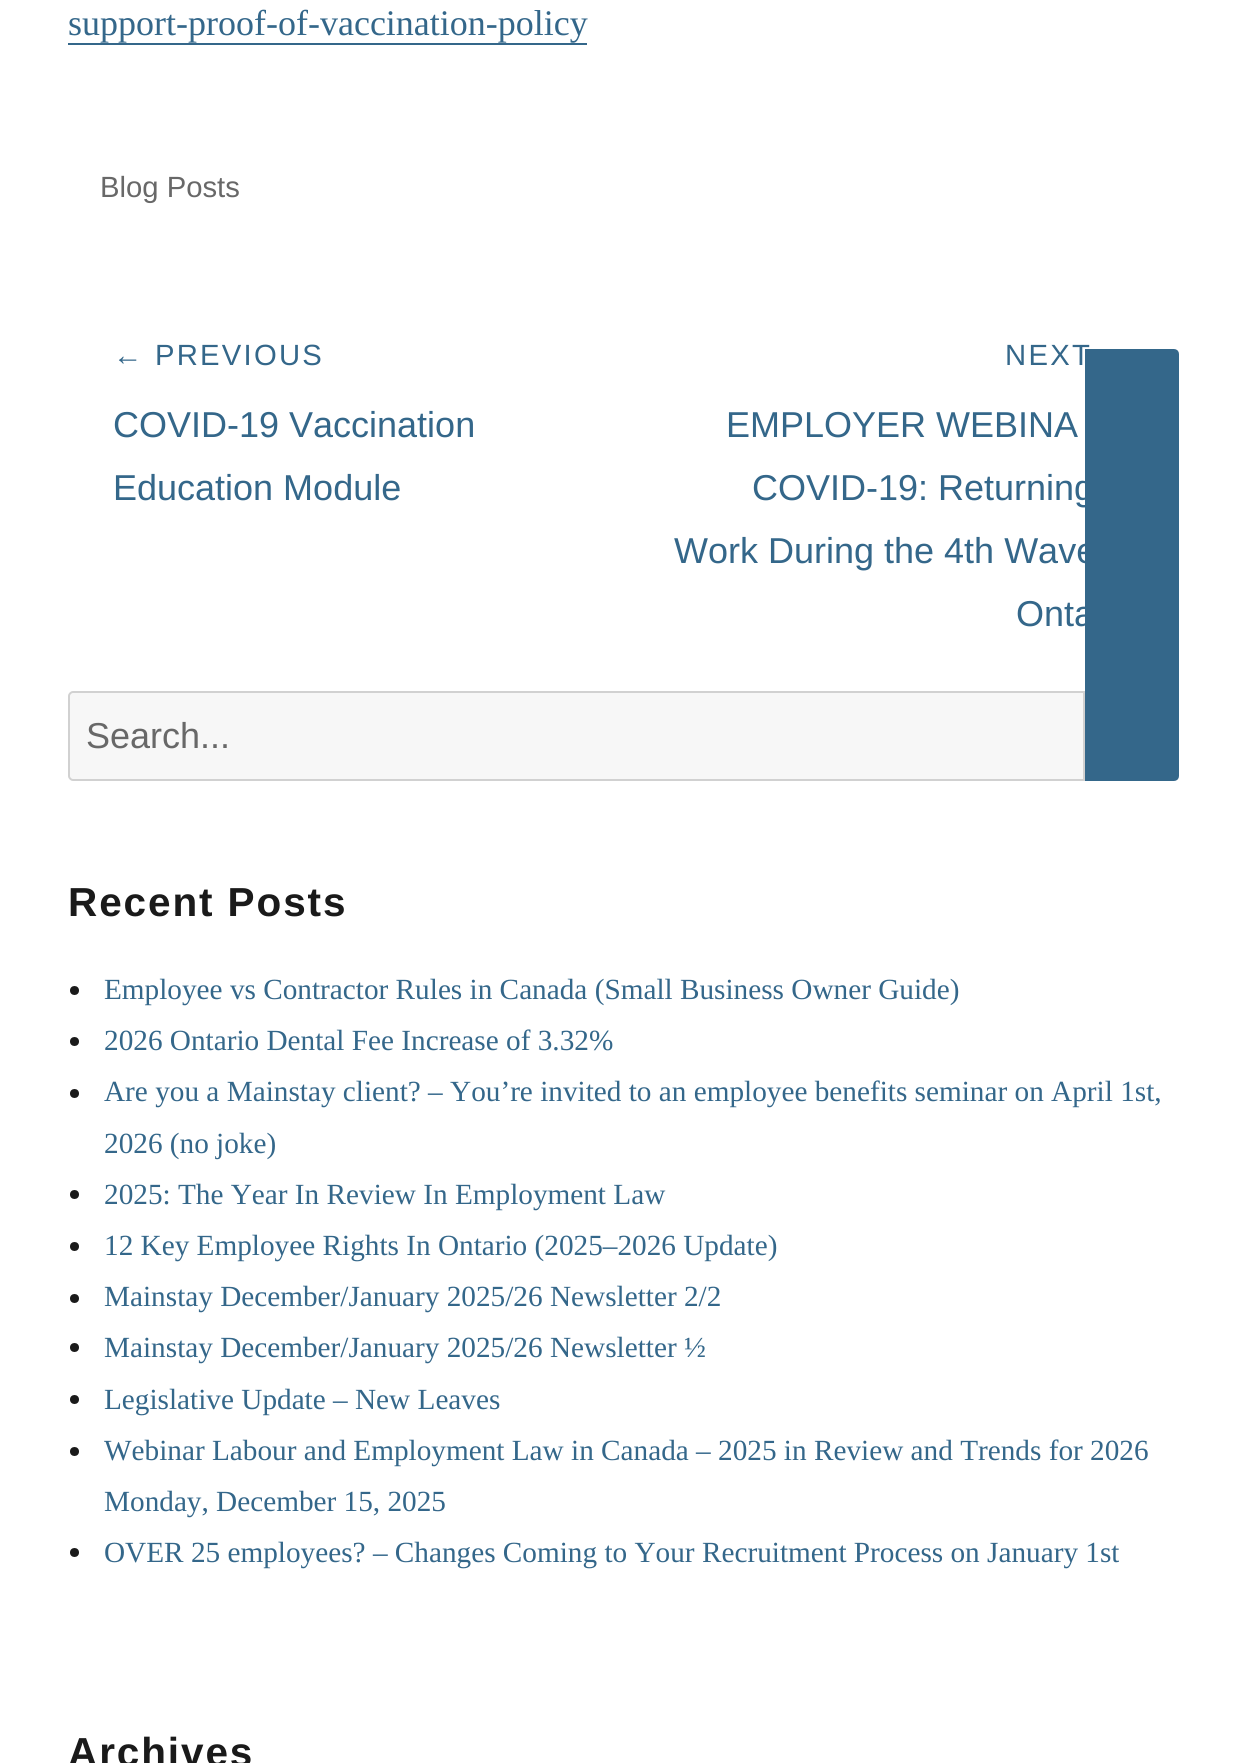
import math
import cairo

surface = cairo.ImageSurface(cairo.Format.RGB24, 1246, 1763)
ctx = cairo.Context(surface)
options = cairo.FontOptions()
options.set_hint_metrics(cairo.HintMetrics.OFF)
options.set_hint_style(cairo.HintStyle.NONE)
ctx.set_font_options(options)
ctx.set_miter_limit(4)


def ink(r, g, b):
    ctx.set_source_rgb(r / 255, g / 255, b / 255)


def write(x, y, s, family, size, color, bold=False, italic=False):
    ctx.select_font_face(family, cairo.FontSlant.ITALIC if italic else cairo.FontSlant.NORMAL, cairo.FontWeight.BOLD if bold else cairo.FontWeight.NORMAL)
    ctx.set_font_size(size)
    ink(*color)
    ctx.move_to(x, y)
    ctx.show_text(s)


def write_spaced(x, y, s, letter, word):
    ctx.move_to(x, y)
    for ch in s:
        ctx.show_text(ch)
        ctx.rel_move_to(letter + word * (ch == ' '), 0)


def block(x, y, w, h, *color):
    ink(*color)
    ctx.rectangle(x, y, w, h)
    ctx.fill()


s1 = dict(family="Liberation Serif", size=36, color=(52, 103, 138))
s2 = dict(family="Liberation Sans", size=29.25, color=(104, 104, 104))
s3 = dict(family="Liberation Sans", size=36, color=(52, 103, 138))
s4 = dict(family="Liberation Sans", size=36, color=(104, 104, 104))
s5 = dict(family="Liberation Serif", size=29.25, color=(52, 103, 138))

ink(255, 255, 255)
ctx.paint()
write(68, 35, "support-proof-of-vaccination-policy", **s1)
block(68, 43, 519, 2, 52, 103, 138)
write(100, 197, "Blog Posts", **s2)
ink(52, 103, 138)
write_spaced(113, 365, "← PREVIOUS", 2.25, 0)
write(113, 437, "COVID-19 Vaccination", **s3)
write(113, 500, "Education Module", **s3)
ctx.set_font_size(29.25)
write_spaced(1005, 365, "NEXT", 2.25, 0)
write(726, 437, "EMPLOYER WEBINA", **s3)
write(752, 500, "COVID-19: Returning", **s3)
write(674, 563, "Work During the 4th Wave", **s3)
write(1016, 626, "Onta", **s3)
ink(247, 247, 247)
ctx.new_path()
ctx.move_to(73, 692)
ctx.line_to(1084, 692)
ctx.line_to(1084, 780)
ctx.line_to(73, 780)
ctx.curve_to(71, 780, 69, 778, 69, 776)
ctx.line_to(69, 696)
ctx.curve_to(69, 694, 71, 692, 73, 692)
ctx.close_path()
ctx.fill_preserve()
ink(209, 209, 209)
ctx.stroke()
write(86, 748, "Search...", **s4)
ink(52, 103, 138)
ctx.new_path()
ctx.move_to(1087.5, 351.5)
ctx.line_to(1174, 351.5)
ctx.curve_to(1175.5, 351.5, 1176.5, 352.5, 1176.5, 354)
ctx.line_to(1176.5, 776)
ctx.curve_to(1176.5, 777.5, 1175.5, 778.5, 1174, 778.5)
ctx.line_to(1087.5, 778.5)
ctx.close_path()
ctx.fill_preserve()
ctx.set_line_width(5)
ctx.stroke()
ctx.select_font_face("Liberation Sans", cairo.FontSlant.NORMAL, cairo.FontWeight.BOLD)
ctx.set_font_size(40.5)
ink(26, 26, 26)
write_spaced(68, 916, "Recent Posts", 1.9, 0)
ctx.new_path()
ctx.arc(74.5, 990.5, 4.5, 0, 2 * math.pi)
ctx.fill()
write(104, 999, "Employee vs Contractor Rules in Canada (Small Business Owner Guide)", **s5)
ink(26, 26, 26)
ctx.new_path()
ctx.arc(74.5, 1041.5, 4.5, 0, 2 * math.pi)
ctx.fill()
write(104, 1050, "2026 Ontario Dental Fee Increase of 3.32%", **s5)
ink(26, 26, 26)
ctx.new_path()
ctx.arc(74.5, 1093.5, 4.5, 0, 2 * math.pi)
ctx.fill()
write(104, 1101, "Are you a Mainstay client? – You’re invited to an employee benefits seminar on April 1st,", **s5)
write(104, 1153, "2026 (no joke)", **s5)
ink(26, 26, 26)
ctx.new_path()
ctx.arc(74.5, 1194.5, 4.5, 0, 2 * math.pi)
ctx.fill()
write(104, 1204, "2025: The Year In Review In Employment Law", **s5)
ink(26, 26, 26)
ctx.new_path()
ctx.arc(74.5, 1246.5, 4.5, 0, 2 * math.pi)
ctx.fill()
write(104, 1255, "12 Key Employee Rights In Ontario (2025–2026 Update)", **s5)
ink(26, 26, 26)
ctx.new_path()
ctx.arc(74.5, 1298.5, 4.5, 0, 2 * math.pi)
ctx.fill()
write(104, 1306, "Mainstay December/January 2025/26 Newsletter 2/2", **s5)
ink(26, 26, 26)
ctx.new_path()
ctx.arc(74.5, 1347.5, 4.5, 0, 2 * math.pi)
ctx.fill()
write(104, 1357, "Mainstay December/January 2025/26 Newsletter ½", **s5)
ink(26, 26, 26)
ctx.new_path()
ctx.arc(74.5, 1399.5, 4.5, 0, 2 * math.pi)
ctx.fill()
write(104, 1409, "Legislative Update – New Leaves", **s5)
ink(26, 26, 26)
ctx.new_path()
ctx.arc(74.5, 1451.5, 4.5, 0, 2 * math.pi)
ctx.fill()
write(104, 1460, "Webinar Labour and Employment Law in Canada – 2025 in Review and Trends for 2026", **s5)
write(104, 1511, "Monday, December 15, 2025", **s5)
ink(26, 26, 26)
ctx.new_path()
ctx.arc(74.5, 1552.5, 4.5, 0, 2 * math.pi)
ctx.fill()
write(104, 1562, "OVER 25 employees? – Changes Coming to Your Recruitment Process on January 1st", **s5)
ctx.select_font_face("Liberation Sans", cairo.FontSlant.NORMAL, cairo.FontWeight.BOLD)
ctx.set_font_size(40.5)
ink(26, 26, 26)
write_spaced(68, 1766, "Archives", 1.9, 0)
surface.write_to_png("screenshot.png")
